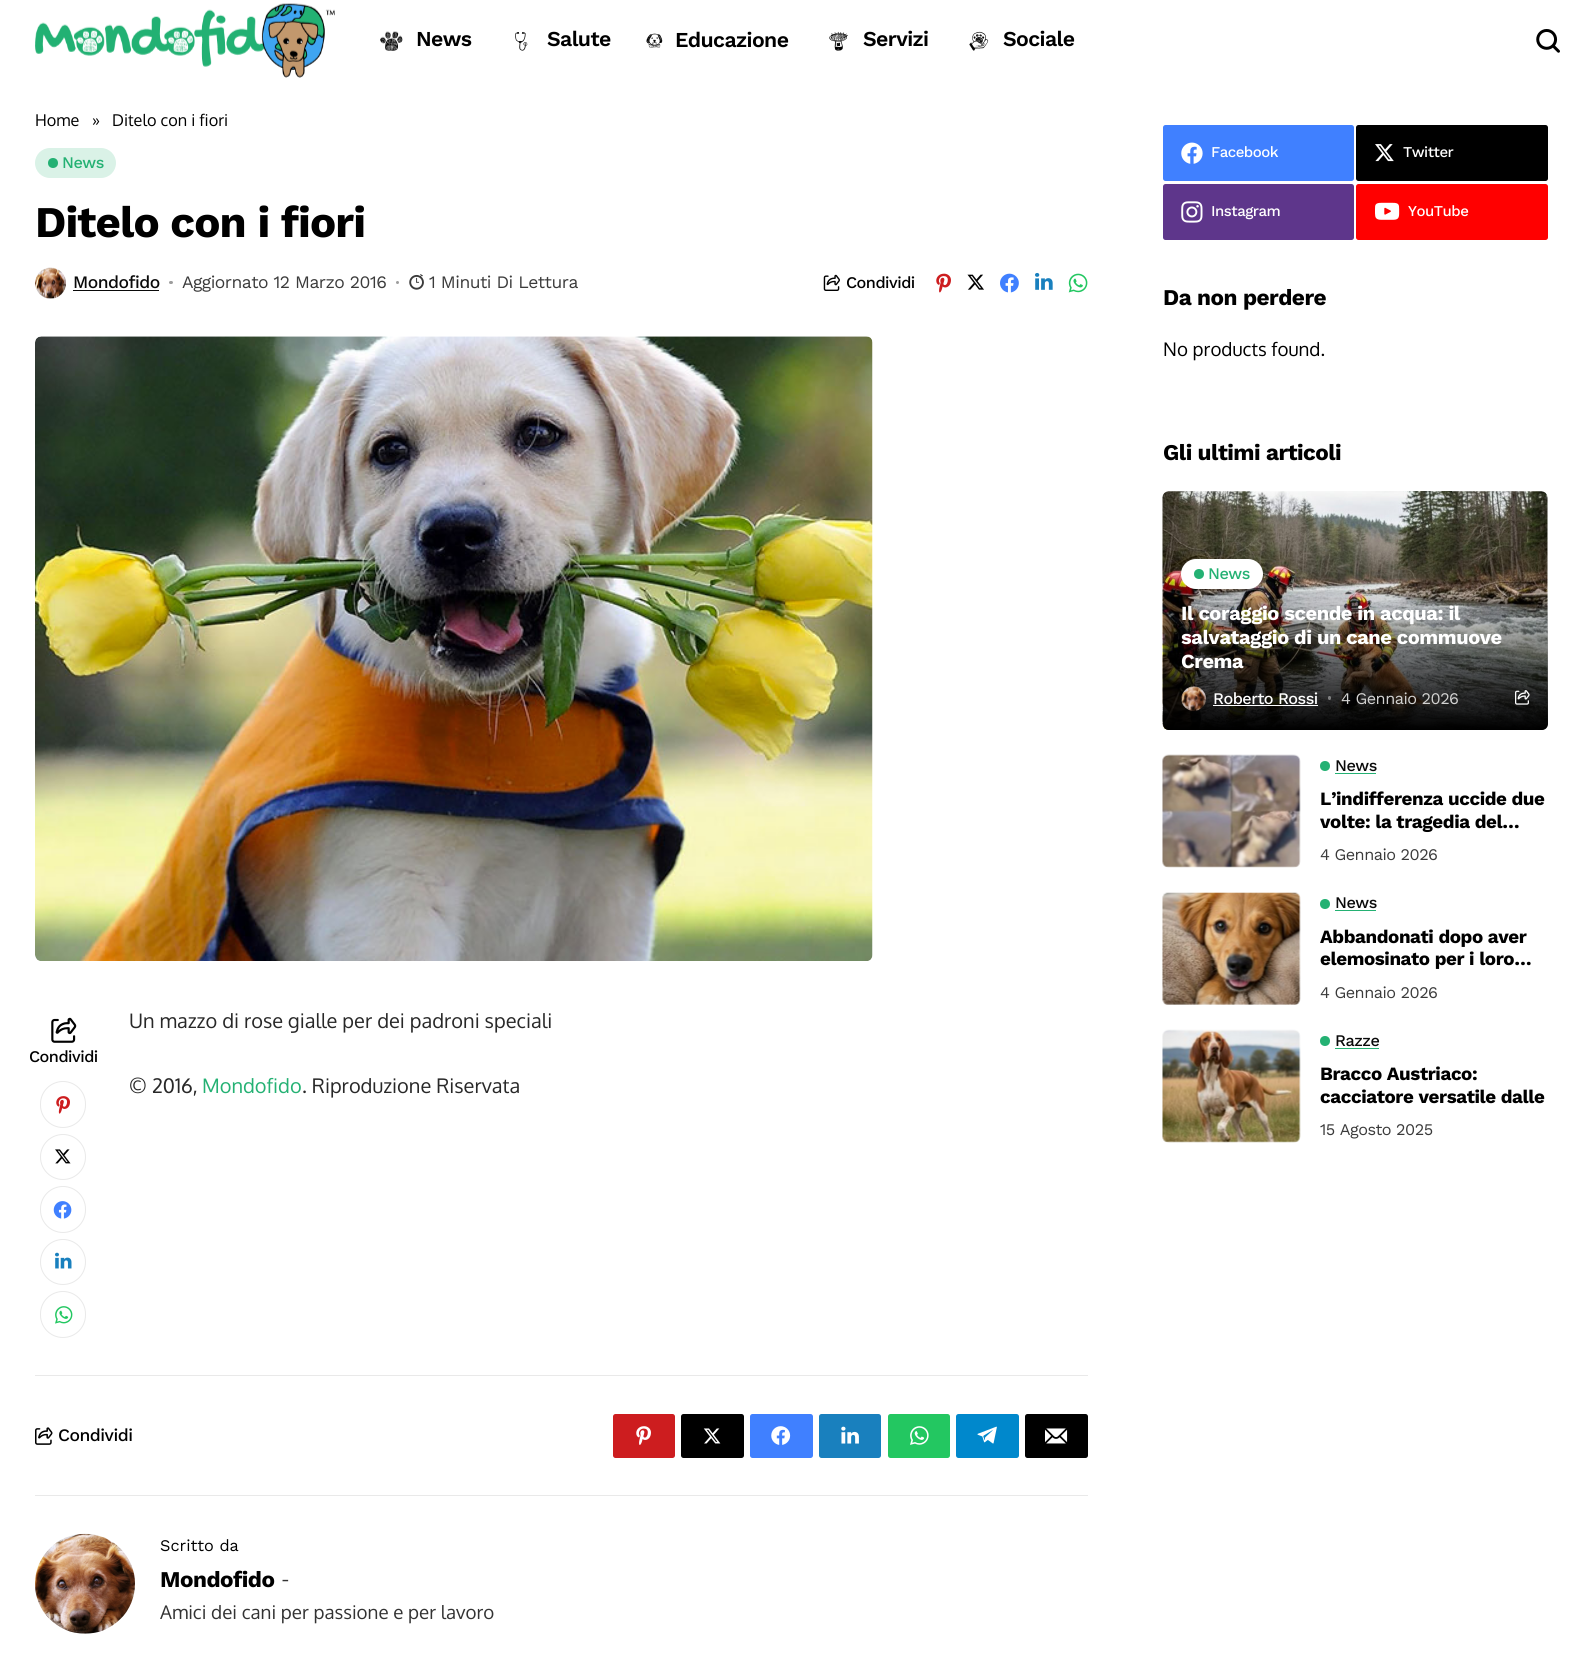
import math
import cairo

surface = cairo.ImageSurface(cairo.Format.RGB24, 1594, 1675)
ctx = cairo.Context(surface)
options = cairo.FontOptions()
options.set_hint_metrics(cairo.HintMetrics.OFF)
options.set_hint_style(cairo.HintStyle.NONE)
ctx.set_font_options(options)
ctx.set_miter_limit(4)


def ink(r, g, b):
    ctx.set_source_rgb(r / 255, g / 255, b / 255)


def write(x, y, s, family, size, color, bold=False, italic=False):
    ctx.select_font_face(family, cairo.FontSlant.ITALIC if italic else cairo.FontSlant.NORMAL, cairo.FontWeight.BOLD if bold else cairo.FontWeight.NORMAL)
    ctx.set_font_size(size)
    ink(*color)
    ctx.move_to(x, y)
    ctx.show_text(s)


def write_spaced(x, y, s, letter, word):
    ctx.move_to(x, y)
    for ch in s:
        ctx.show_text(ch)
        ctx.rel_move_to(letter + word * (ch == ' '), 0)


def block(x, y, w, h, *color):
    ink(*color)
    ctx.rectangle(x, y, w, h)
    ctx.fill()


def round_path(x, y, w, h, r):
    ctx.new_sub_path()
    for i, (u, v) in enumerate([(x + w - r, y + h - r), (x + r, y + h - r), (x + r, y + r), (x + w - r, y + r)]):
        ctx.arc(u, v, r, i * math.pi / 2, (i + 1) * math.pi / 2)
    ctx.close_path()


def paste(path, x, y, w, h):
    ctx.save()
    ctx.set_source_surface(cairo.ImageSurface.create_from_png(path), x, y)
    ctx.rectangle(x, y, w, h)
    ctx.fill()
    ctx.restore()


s1 = dict(family="Oxygen", size=16.25, color=(0, 0, 0))
s2 = dict(family="Oxygen", size=20, color=(40, 40, 40))
s3 = dict(family="Oxygen", size=20, color=(36, 177, 115))
s4 = dict(family="Work Sans", size=16.25, color=(0, 0, 0))
s5 = dict(family="Oxygen", size=18.75, color=(51, 51, 51))
s6 = dict(family="Oxygen", size=18.75, color=(0, 0, 0))

ink(255, 255, 255)
ctx.paint()
paste("pic1.png", 35, 3, 300, 75)
paste("pic2.png", 380, 31, 23, 20)
ctx.select_font_face("Work Sans SemiBold")
ctx.set_font_size(21.25)
ink(0, 0, 0)
write_spaced(416, 46, "News", -0.6, 0)
paste("pic3.png", 515, 32, 13, 19)
write_spaced(547, 46, "Salute", -0.6, 0)
paste("pic4.png", 646, 33, 17, 15)
write_spaced(675, 47, "Educazione", -0.6, 0)
paste("pic5.png", 829, 31, 19, 20)
write_spaced(863, 46, "Servizi", -0.6, 0)
paste("pic6.png", 969, 31, 20, 20)
write_spaced(1003, 46, "Sociale", -0.6, 0)
paste("pic7.png", 1536, 29, 24, 24)
write(35, 126, "Home", **s1)
write(92, 126, "»", **s1)
write(112, 126, "Ditelo con i fiori", **s1)
ink(218, 242, 231)
round_path(35, 148, 81, 30, 15)
ctx.fill()
ink(36, 177, 115)
ctx.arc(53, 163, 5, 0, 2 * math.pi)
ctx.fill()
ctx.select_font_face("Work Sans Medium")
write_spaced(62, 168, "News", -0.5, 0)
ctx.select_font_face("Work Sans", cairo.FontSlant.NORMAL, cairo.FontWeight.BOLD)
ctx.set_font_size(43.75)
ink(0, 0, 0)
write_spaced(35, 237, "Ditelo con i fiori", -0.9, 0)
paste("pic8.png", 35, 267, 31, 32)
ctx.select_font_face("Work Sans Medium")
ctx.set_font_size(17.5)
ink(10, 10, 10)
write_spaced(73, 288, "Mondofido", -0.5, 0)
block(73, 290, 86, 1, 10, 10, 10)
ink(157, 157, 157)
round_path(169, 281, 4, 3, 1.5)
ctx.fill()
ctx.select_font_face("Work Sans")
ink(59, 59, 59)
write_spaced(182, 288, "Aggiornato 12 Marzo 2016", -0.5, 0)
ink(157, 157, 157)
ctx.new_path()
ctx.arc(397.5, 282.5, 1.5, 0, 2 * math.pi)
ctx.fill()
paste("pic9.png", 409, 274, 15, 16)
ink(59, 59, 59)
write_spaced(429, 288, "1 Minuti Di Lettura", -0.5, 0)
paste("pic10.png", 823, 274, 17, 17)
ctx.select_font_face("Work Sans Medium")
ctx.set_font_size(16.25)
ink(0, 0, 0)
write_spaced(846, 288, "Condividi", -0.5, 0)
paste("pic11.png", 936, 273, 15, 20)
paste("pic12.png", 967, 274, 17, 16)
paste("pic13.png", 1000, 273, 19, 20)
paste("pic14.png", 1035, 272, 18, 18)
paste("pic15.png", 1068, 273, 20, 20)
paste("pic16.png", 35, 336, 838, 625)
block(35, 1375, 1053, 1, 233, 233, 233)
paste("pic17.png", 51, 1017, 26, 26)
ink(0, 0, 0)
write_spaced(29, 1062, "Condividi", -0.5, 0)
round_path(40.5, 1081.5, 45, 46, 22.5)
ink(233, 233, 233)
ctx.set_line_width(1)
ctx.stroke()
paste("pic18.png", 56, 1096, 14, 18)
ctx.arc(63, 1157, 22.5, 0, 2 * math.pi)
ctx.stroke()
paste("pic19.png", 55, 1149, 16, 15)
round_path(40.5, 1186.5, 45, 46, 22.5)
ctx.stroke()
paste("pic20.png", 53, 1201, 19, 18)
ctx.arc(63, 1262, 22.5, 0, 2 * math.pi)
ctx.stroke()
paste("pic21.png", 55, 1252, 17, 17)
round_path(40.5, 1291.5, 45, 46, 22.5)
ctx.stroke()
paste("pic22.png", 55, 1306, 18, 18)
write(129, 1028, "Un mazzo di rose gialle per dei padroni speciali", **s2)
write(129, 1093, "© 2016,", **s2)
write(202, 1093, "Mondofido", **s3)
write(302, 1093, ". Riproduzione Riservata", **s2)
block(35, 1495, 1053, 1, 233, 233, 233)
paste("pic23.png", 35, 1427, 18, 18)
ctx.select_font_face("Work Sans Medium")
ctx.set_font_size(17.5)
ink(0, 0, 0)
write_spaced(58, 1441, "Condividi", -0.5, 0)
ink(205, 29, 31)
round_path(613, 1414, 62, 44, 2.5)
ctx.fill()
paste("pic24.png", 636, 1426, 15, 19)
ink(0, 0, 0)
round_path(681, 1414, 63, 44, 2.5)
ctx.fill()
paste("pic25.png", 703, 1428, 18, 16)
ink(64, 128, 255)
round_path(750, 1414, 63, 44, 2.5)
ctx.fill()
paste("pic26.png", 771, 1426, 20, 19)
ink(25, 128, 190)
round_path(819, 1414, 62, 44, 2.5)
ctx.fill()
paste("pic27.png", 841, 1426, 18, 18)
ink(35, 199, 97)
round_path(888, 1414, 62, 44, 2.5)
ctx.fill()
paste("pic28.png", 910, 1426, 19, 19)
ink(0, 136, 204)
round_path(956, 1414, 63, 44, 2.5)
ctx.fill()
paste("pic29.png", 977, 1426, 20, 18)
ink(0, 0, 0)
round_path(1025, 1414, 63, 44, 2.5)
ctx.fill()
paste("pic30.png", 1045, 1428, 23, 16)
paste("pic31.png", 35, 1533, 100, 101)
write(160, 1551, "Scritto da", **s4)
ctx.select_font_face("Work Sans", cairo.FontSlant.NORMAL, cairo.FontWeight.BOLD)
ctx.set_font_size(22.5)
write_spaced(160, 1587, "Mondofido", -0.5, 0)
ctx.select_font_face("Work Sans")
ctx.set_font_size(17)
ink(51, 51, 51)
write_spaced(281, 1585, "-", -0.5, 0)
write(160, 1619, "Amici dei cani per passione e per lavoro", **s5)
ink(64, 128, 255)
round_path(1163, 125, 191, 56, 2.5)
ctx.fill()
paste("pic32.png", 1181, 142, 22, 22)
ctx.select_font_face("Work Sans Medium")
ctx.set_font_size(15)
ink(255, 255, 255)
write_spaced(1211, 157, "Facebook", -0.5, 0)
ink(0, 0, 0)
round_path(1356, 125, 192, 56, 2.5)
ctx.fill()
paste("pic33.png", 1375, 144, 19, 18)
ink(255, 255, 255)
write_spaced(1403, 157, "Twitter", -0.5, 0)
ink(94, 54, 139)
round_path(1163, 184, 191, 56, 2.5)
ctx.fill()
paste("pic34.png", 1181, 201, 22, 22)
ink(255, 255, 255)
write_spaced(1211, 216, "Instagram", -0.5, 0)
ink(255, 0, 0)
round_path(1356, 184, 192, 56, 2.5)
ctx.fill()
paste("pic35.png", 1375, 202, 25, 18)
ink(255, 255, 255)
write_spaced(1408, 216, "YouTube", -0.5, 0)
ctx.select_font_face("Work Sans", cairo.FontSlant.NORMAL, cairo.FontWeight.BOLD)
ctx.set_font_size(22.5)
ink(0, 0, 0)
write_spaced(1163, 305, "Da non perdere", -0.5, 0)
write(1163, 356, "No products found.", **s6)
ctx.select_font_face("Work Sans", cairo.FontSlant.NORMAL, cairo.FontWeight.BOLD)
ctx.set_font_size(22.5)
write_spaced(1163, 460, "Gli ultimi articoli", -0.5, 0)
paste("pic36.png", 1162, 491, 386, 239)
gradient = cairo.LinearGradient(1355, 491, 1355, 730)
gradient.add_color_stop_rgba(0.4, 0, 0, 0, 0)
gradient.add_color_stop_rgba(1, 0, 0, 0, 1)
ctx.set_source(gradient)
round_path(1163, 491, 385, 239, 6)
ctx.fill()
ink(255, 255, 255)
round_path(1181, 559, 82, 30, 15)
ctx.fill()
ink(36, 177, 115)
ctx.arc(1199, 574, 5, 0, 2 * math.pi)
ctx.fill()
ctx.select_font_face("Work Sans Medium")
ctx.set_font_size(16.25)
write_spaced(1208, 579, "News", -0.5, 0)
ctx.select_font_face("Work Sans", cairo.FontSlant.NORMAL, cairo.FontWeight.BOLD)
ctx.set_font_size(20)
ink(255, 255, 255)
write_spaced(1181, 620, "Il coraggio scende in acqua: il", -0.4, 0)
write_spaced(1181, 644, "salvataggio di un cane commuove", -0.4, 0)
write_spaced(1181, 668, "Crema", -0.4, 0)
paste("pic37.png", 1181, 686, 26, 25)
ctx.select_font_face("Work Sans Medium")
ctx.set_font_size(16.25)
write_spaced(1213, 704, "Roberto Rossi", -0.5, 0)
block(1213, 705, 105, 1, 255, 255, 255)
ctx.set_source_rgba(1, 1, 1, 0.4)
round_path(1328, 696, 3, 4, 1.5)
ctx.fill()
ctx.select_font_face("Work Sans")
ink(210, 210, 209)
write_spaced(1341, 704, "4 Gennaio 2026", -0.5, 0)
paste("pic38.png", 1515, 690, 15, 15)
paste("pic39.png", 1162, 754, 139, 114)
ink(36, 177, 115)
ctx.arc(1325, 766, 5, 0, 2 * math.pi)
ctx.fill()
ctx.select_font_face("Work Sans Medium")
ink(10, 10, 10)
write_spaced(1335, 771, "News", -0.5, 0)
block(1335, 773, 41, 1, 36, 177, 115)
ctx.select_font_face("Work Sans", cairo.FontSlant.NORMAL, cairo.FontWeight.BOLD)
ctx.set_font_size(18.75)
ink(0, 0, 0)
write_spaced(1320, 805, "L’indifferenza uccide due", -0.4, 0)
write_spaced(1320, 828, "volte: la tragedia del…", -0.4, 0)
ctx.select_font_face("Work Sans")
ctx.set_font_size(16.25)
ink(59, 59, 59)
write_spaced(1320, 860, "4 Gennaio 2026", -0.5, 0)
paste("pic40.png", 1162, 892, 139, 113)
ink(36, 177, 115)
ctx.arc(1325, 904, 5, 0, 2 * math.pi)
ctx.fill()
ctx.select_font_face("Work Sans Medium")
ink(10, 10, 10)
write_spaced(1335, 908, "News", -0.5, 0)
block(1335, 910, 41, 1, 36, 177, 115)
ctx.select_font_face("Work Sans", cairo.FontSlant.NORMAL, cairo.FontWeight.BOLD)
ctx.set_font_size(18.75)
ink(0, 0, 0)
write_spaced(1320, 943, "Abbandonati dopo aver", -0.4, 0)
write_spaced(1320, 965, "elemosinato per i loro…", -0.4, 0)
ctx.select_font_face("Work Sans")
ctx.set_font_size(16.25)
ink(59, 59, 59)
write_spaced(1320, 998, "4 Gennaio 2026", -0.5, 0)
paste("pic41.png", 1162, 1029, 139, 114)
ink(36, 177, 115)
ctx.arc(1325, 1041, 5, 0, 2 * math.pi)
ctx.fill()
ctx.select_font_face("Work Sans Medium")
ink(10, 10, 10)
write_spaced(1335, 1046, "Razze", -0.5, 0)
block(1335, 1048, 44, 1, 36, 177, 115)
ctx.select_font_face("Work Sans", cairo.FontSlant.NORMAL, cairo.FontWeight.BOLD)
ctx.set_font_size(18.75)
ink(0, 0, 0)
write_spaced(1320, 1080, "Bracco Austriaco:", -0.4, 0)
write_spaced(1320, 1103, "cacciatore versatile dalle", -0.4, 0)
ctx.select_font_face("Work Sans")
ctx.set_font_size(16.25)
ink(59, 59, 59)
write_spaced(1320, 1135, "15 Agosto 2025", -0.5, 0)
surface.write_to_png("screenshot.png")
